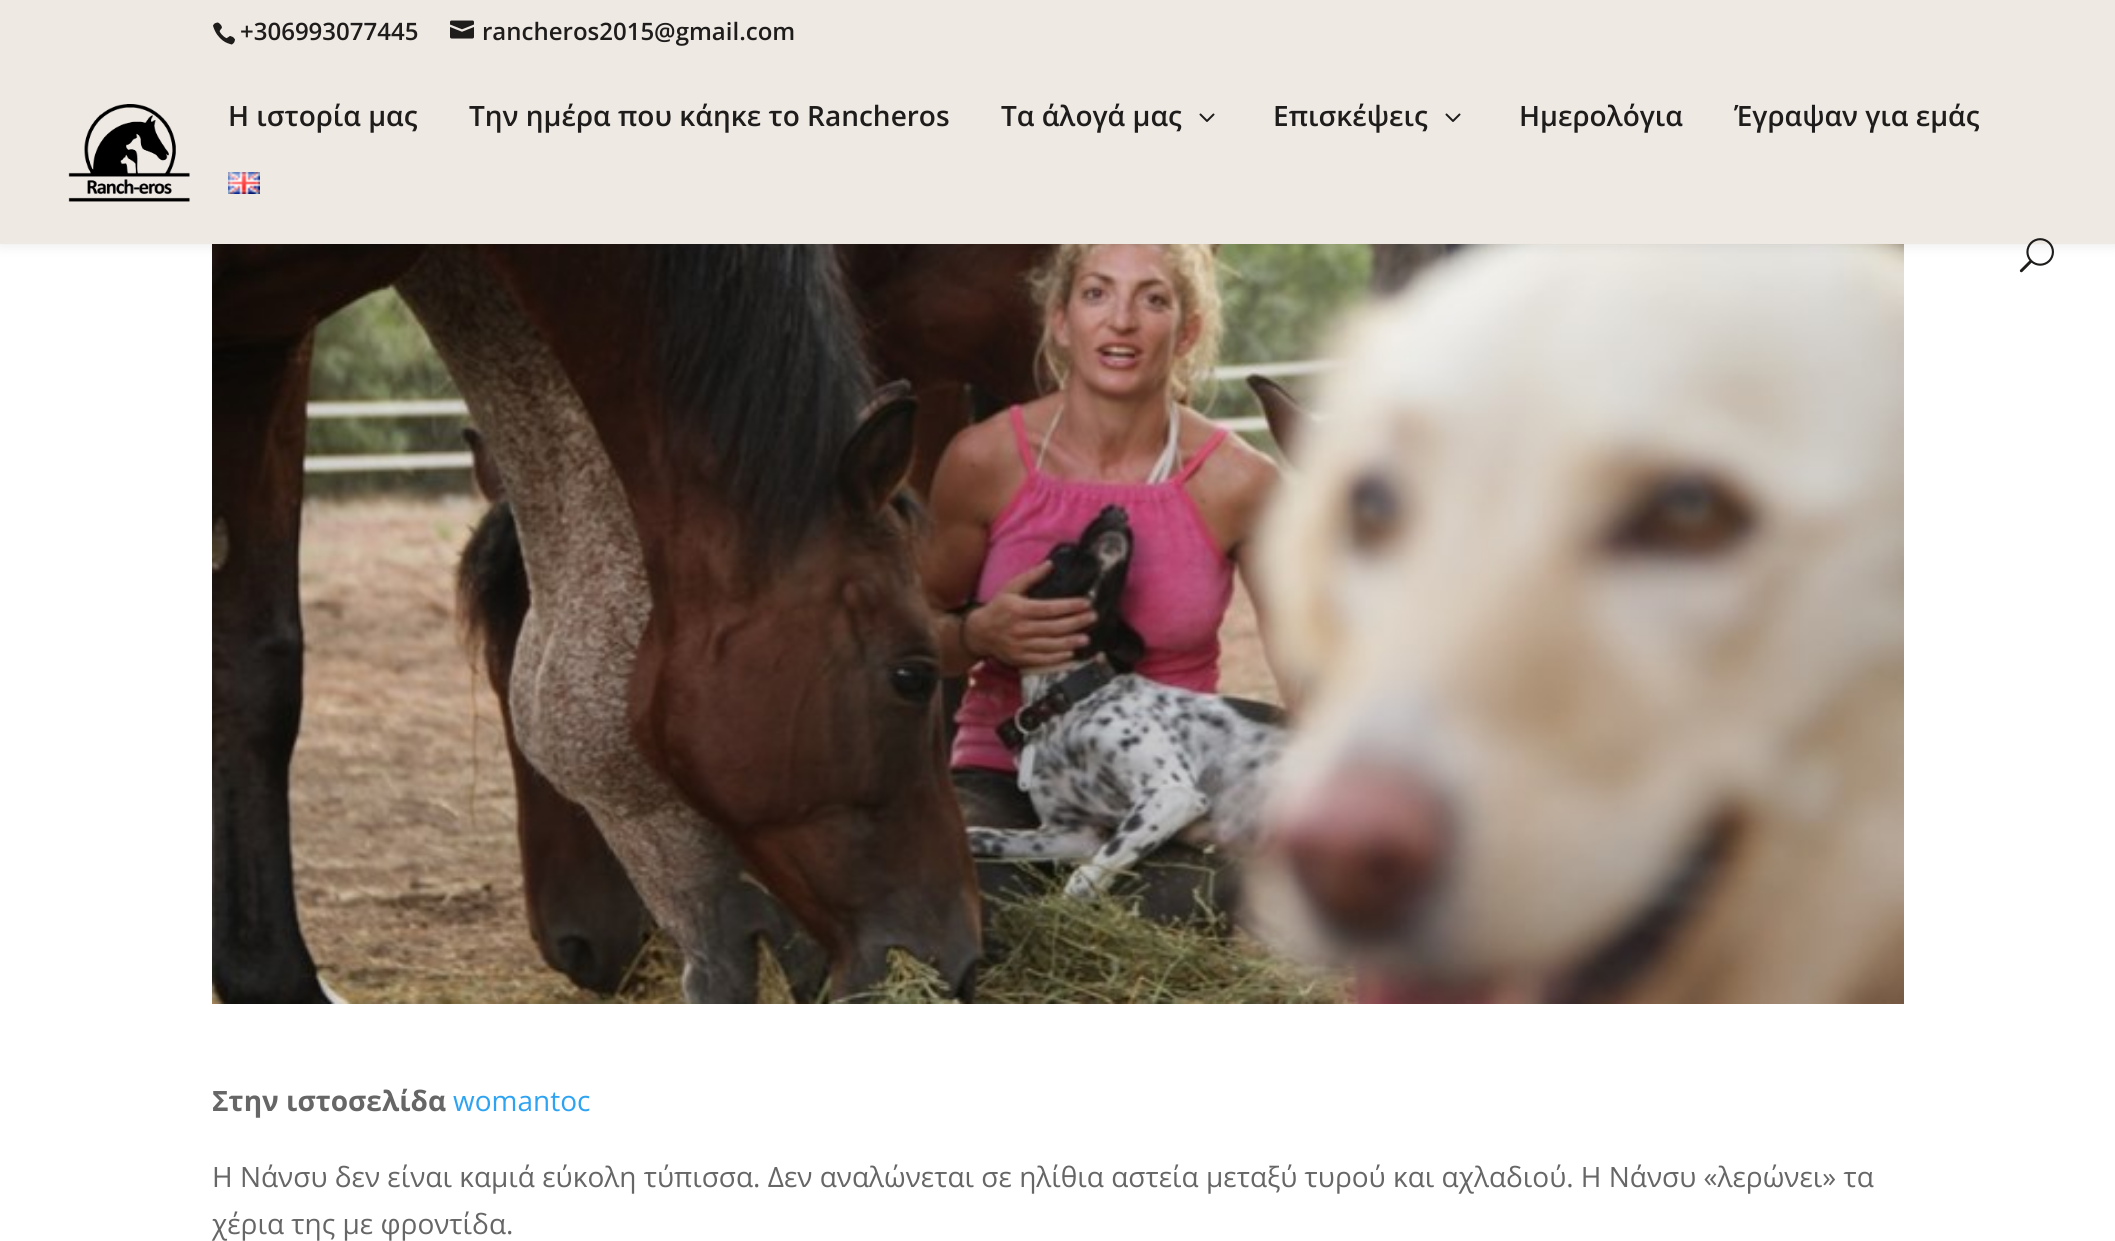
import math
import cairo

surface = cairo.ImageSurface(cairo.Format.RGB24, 2115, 1241)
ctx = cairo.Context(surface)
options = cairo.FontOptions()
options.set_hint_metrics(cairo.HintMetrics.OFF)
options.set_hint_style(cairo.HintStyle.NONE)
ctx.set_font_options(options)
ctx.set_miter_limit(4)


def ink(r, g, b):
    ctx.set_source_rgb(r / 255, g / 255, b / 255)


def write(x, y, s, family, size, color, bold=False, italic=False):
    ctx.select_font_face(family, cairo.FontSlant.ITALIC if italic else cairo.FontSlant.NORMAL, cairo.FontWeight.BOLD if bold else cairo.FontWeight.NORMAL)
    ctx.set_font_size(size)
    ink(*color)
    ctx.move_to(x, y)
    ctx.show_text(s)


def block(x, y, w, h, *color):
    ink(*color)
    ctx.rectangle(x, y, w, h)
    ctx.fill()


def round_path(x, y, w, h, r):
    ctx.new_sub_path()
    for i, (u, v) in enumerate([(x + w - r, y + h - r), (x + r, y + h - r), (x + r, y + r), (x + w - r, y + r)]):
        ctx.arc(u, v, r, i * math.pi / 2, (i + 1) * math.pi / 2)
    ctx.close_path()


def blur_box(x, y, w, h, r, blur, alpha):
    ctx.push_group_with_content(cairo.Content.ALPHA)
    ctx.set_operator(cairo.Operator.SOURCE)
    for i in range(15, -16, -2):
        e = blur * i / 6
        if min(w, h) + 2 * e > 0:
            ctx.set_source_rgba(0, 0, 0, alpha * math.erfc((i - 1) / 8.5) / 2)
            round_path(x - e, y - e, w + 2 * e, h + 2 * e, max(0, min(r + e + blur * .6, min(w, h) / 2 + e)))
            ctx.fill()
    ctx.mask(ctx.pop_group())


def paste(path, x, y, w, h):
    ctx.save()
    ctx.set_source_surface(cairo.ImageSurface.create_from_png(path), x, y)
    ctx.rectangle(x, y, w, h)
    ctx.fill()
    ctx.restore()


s1 = dict(family="Open Sans SemiBold", size=24, color=(30, 29, 28))
s2 = dict(family="Open Sans SemiBold", size=28, color=(30, 29, 28))
s3 = dict(family="Open Sans", size=28, color=(102, 102, 102), bold=True)
s4 = dict(family="Open Sans", size=28, color=(46, 163, 242))
s5 = dict(family="Open Sans", size=28, color=(102, 102, 102))

ink(255, 255, 255)
ctx.paint()
paste("pic7.png", 212, 244, 1692, 760)
ink(0, 0, 0)
blur_box(0, 62, 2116, 182, 0, 7, 0.1)
block(0, 0, 2115, 244, 239, 233, 228)
paste("pic1.png", 213, 22, 22, 23)
write(240, 40, "+306993077445", **s1)
paste("pic2.png", 450, 20, 24, 19)
write(482, 40, "rancheros2015@gmail.com", **s1)
paste("pic3.png", 68, 104, 122, 98)
write(228, 126, "Η ιστορία μας", **s2)
write(469, 126, "Την ημέρα που κάηκε το Rancheros", **s2)
write(1001, 126, "Τα άλογά μας", **s2)
paste("pic4.png", 1199, 113, 16, 9)
write(1273, 126, "Επισκέψεις", **s2)
paste("pic4.png", 1445, 113, 16, 9)
write(1519, 126, "Ημερολόγια", **s2)
write(1734, 126, "Έγραψαν για εμάς", **s2)
paste("pic5.png", 228, 172, 32, 22)
paste("pic6.png", 2019, 238, 35, 35)
write(212, 1111, "Στην ιστοσελίδα", **s3)
write(453, 1111, "womantoc", **s4)
write(212, 1187, "Η Νάνσυ δεν είναι καμιά εύκολη τύπισσα. Δεν αναλώνεται σε ηλίθια αστεία μεταξύ τυρού και αχλαδιού. Η Νάνσυ «λερώνει» τα", **s5)
write(212, 1234, "χέρια της με φροντίδα.", **s5)
surface.write_to_png("screenshot.png")
